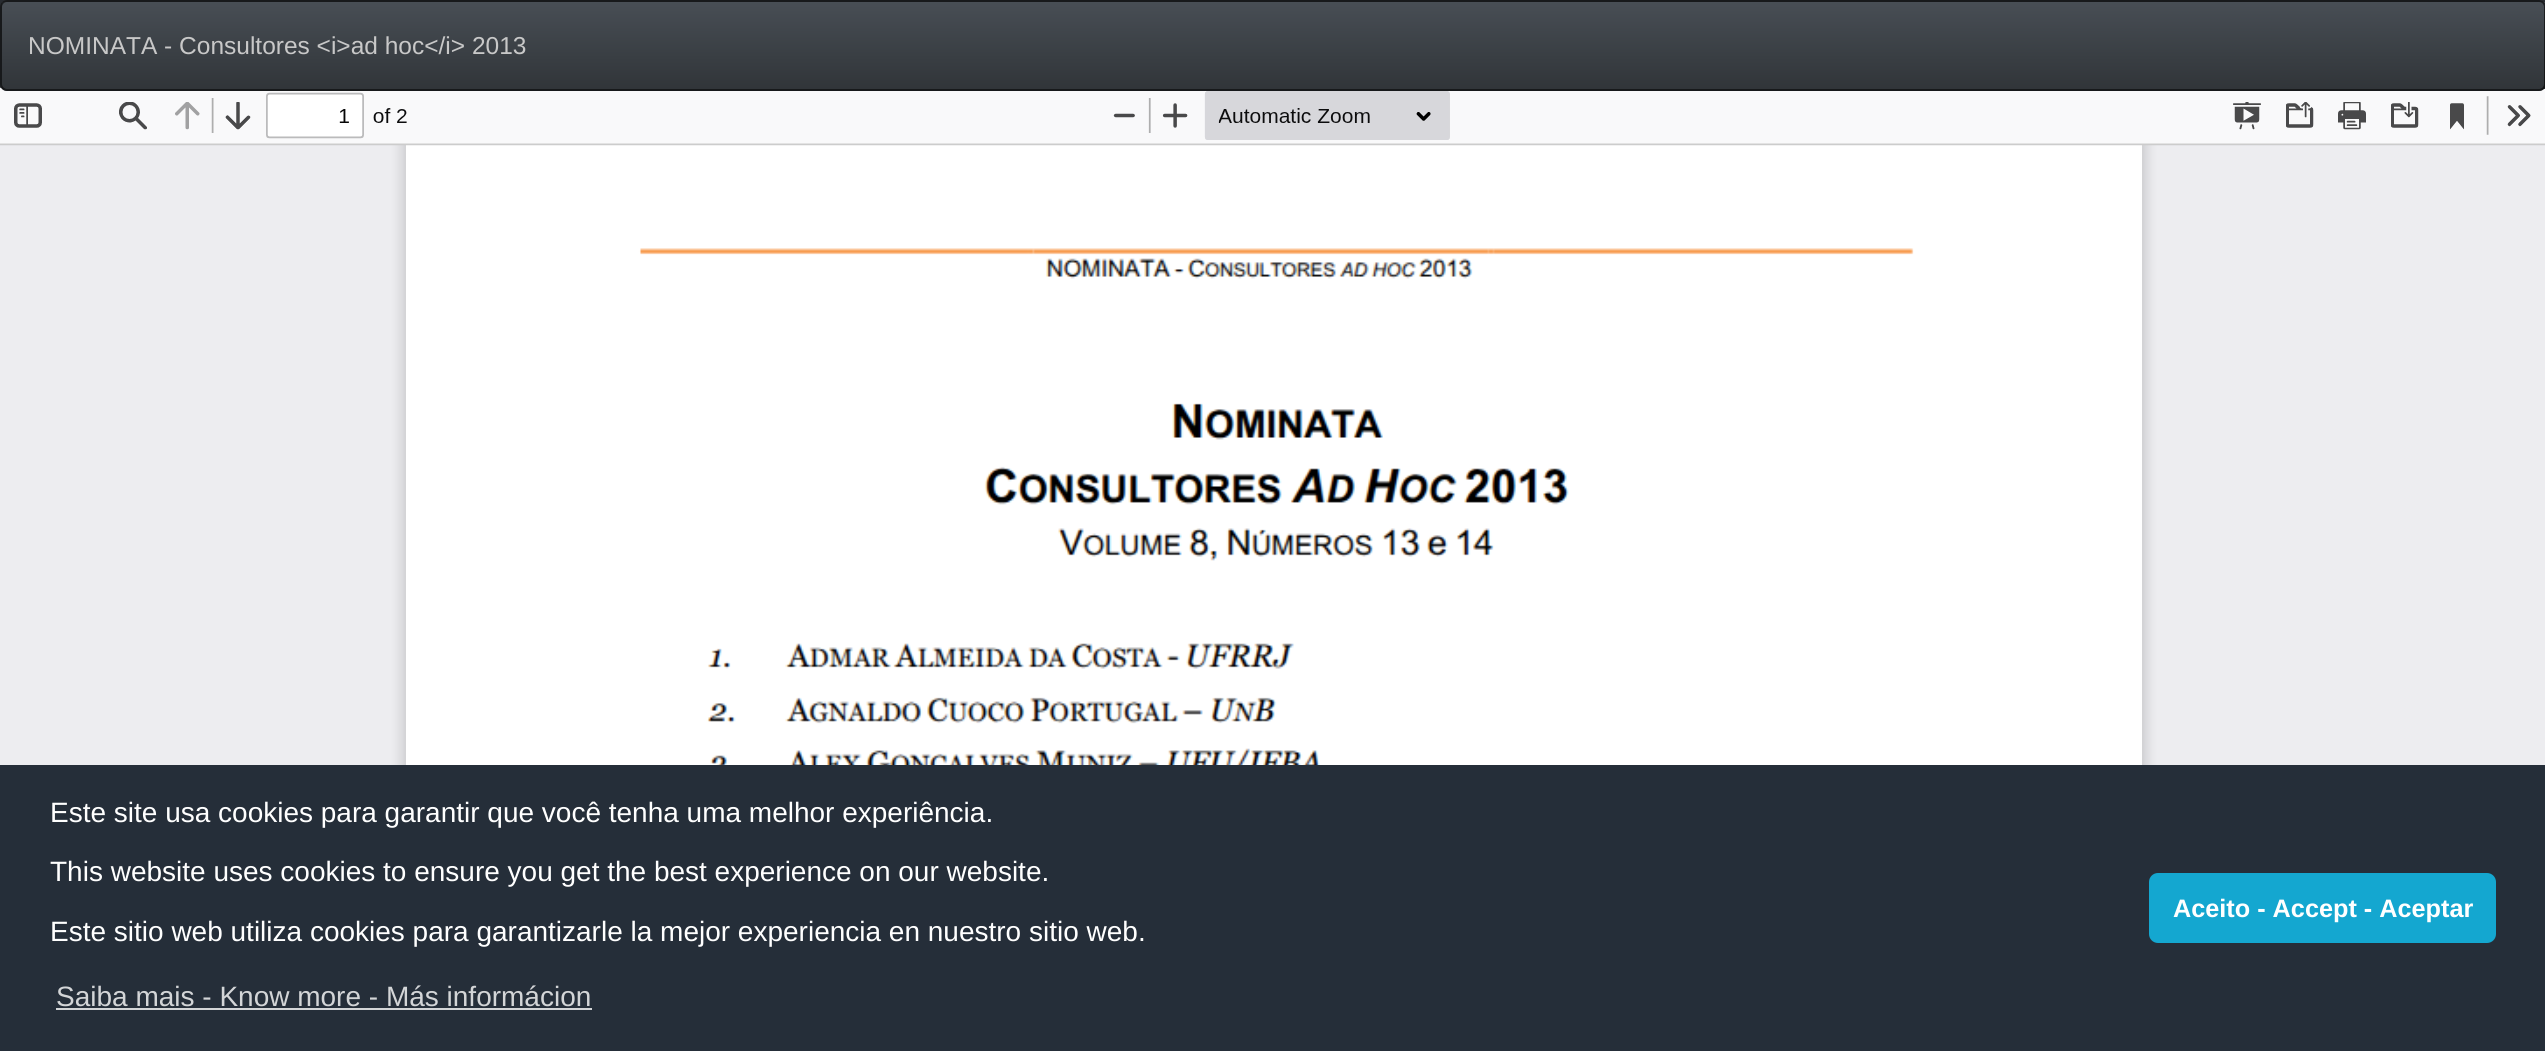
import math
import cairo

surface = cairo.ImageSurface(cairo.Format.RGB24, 2545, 1051)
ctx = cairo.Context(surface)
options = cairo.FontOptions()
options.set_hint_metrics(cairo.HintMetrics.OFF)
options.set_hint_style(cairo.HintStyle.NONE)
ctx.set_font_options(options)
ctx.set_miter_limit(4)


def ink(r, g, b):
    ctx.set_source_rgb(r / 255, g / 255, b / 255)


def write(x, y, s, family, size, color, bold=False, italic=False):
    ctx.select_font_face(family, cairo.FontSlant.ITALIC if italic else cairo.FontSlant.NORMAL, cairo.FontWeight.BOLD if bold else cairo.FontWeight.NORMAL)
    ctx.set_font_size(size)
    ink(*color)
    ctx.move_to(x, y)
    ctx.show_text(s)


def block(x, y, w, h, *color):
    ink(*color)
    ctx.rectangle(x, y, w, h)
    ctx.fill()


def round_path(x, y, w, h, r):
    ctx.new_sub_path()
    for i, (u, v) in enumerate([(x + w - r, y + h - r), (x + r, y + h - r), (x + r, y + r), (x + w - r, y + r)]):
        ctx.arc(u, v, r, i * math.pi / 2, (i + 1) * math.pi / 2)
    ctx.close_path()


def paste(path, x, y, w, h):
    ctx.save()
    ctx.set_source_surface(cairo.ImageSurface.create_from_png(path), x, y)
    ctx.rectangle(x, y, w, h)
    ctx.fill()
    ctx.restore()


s1 = dict(family="Liberation Sans", size=24.5, color=(200, 200, 200))
s2 = dict(family="Liberation Sans", size=28, color=(255, 255, 255))
s3 = dict(family="Liberation Sans", size=28, color=(211, 213, 215))
s4 = dict(family="Liberation Sans", size=25.25, color=(255, 255, 255), bold=True)

ink(39, 43, 48)
ctx.paint()
paste("pic1.png", 0, 87, 2545, 678)
ink(58, 63, 68)
round_path(0, 0, 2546, 91, 7)
ctx.fill()
gradient = cairo.LinearGradient(1273, 1.7, 1273, 89)
gradient.add_color_stop_rgba(0, 0.282, 0.306, 0.333, 1)
gradient.add_color_stop_rgba(0.6, 0.227, 0.247, 0.267, 1)
gradient.add_color_stop_rgba(1, 0.192, 0.208, 0.224, 1)
ctx.set_source(gradient)
ctx.rectangle(2, 2, 2543, 87)
ctx.fill()
round_path(1, 1, 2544, 89, 6)
ctx.set_source_rgba(0, 0, 0, 0.6)
ctx.stroke()
write(28, 54, "NOMINATA - Consultores <i>ad hoc</i> 2013", **s1)
block(0, 765, 2545, 286, 37, 46, 57)
write(50, 822, "Este site usa cookies para garantir que você tenha uma melhor experiência.", **s2)
write(50, 881, "This website uses cookies to ensure you get the best experience on our website.", **s2)
write(50, 941, "Este sitio web utiliza cookies para garantizarle la mejor experiencia en nuestro sitio web.", **s2)
write(56, 1006, "Saiba mais - Know more - Más informácion", **s3)
block(56, 1008, 536, 2, 211, 213, 215)
ink(20, 167, 208)
round_path(2149, 873, 347, 70, 9)
ctx.fill()
write(2173, 917, "Aceito - Accept - Aceptar", **s4)
surface.write_to_png("screenshot.png")
